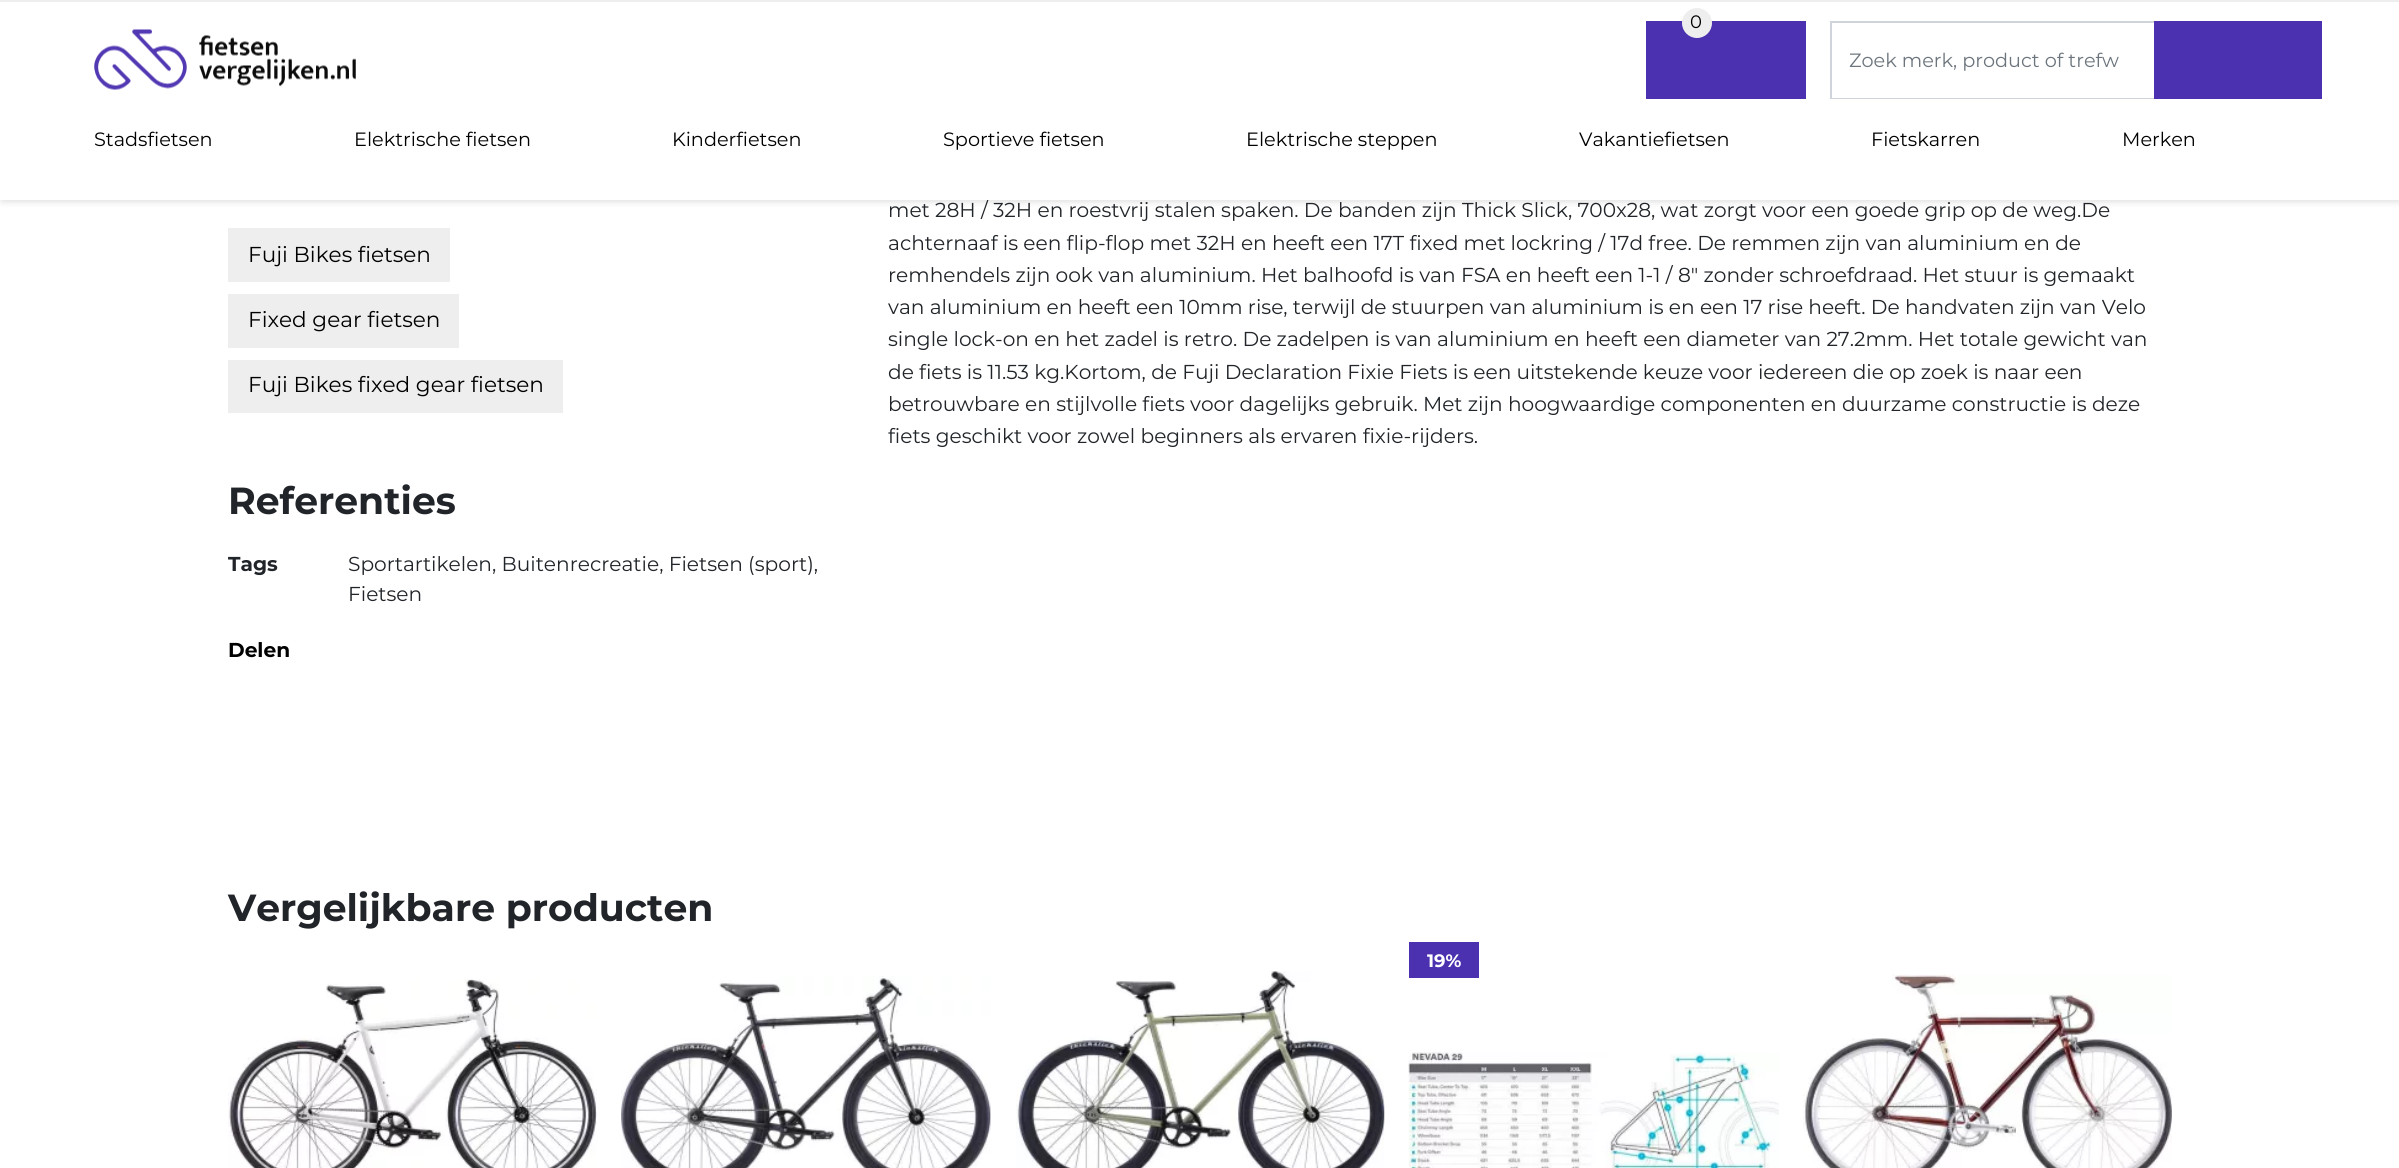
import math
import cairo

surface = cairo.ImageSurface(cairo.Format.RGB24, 2399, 1168)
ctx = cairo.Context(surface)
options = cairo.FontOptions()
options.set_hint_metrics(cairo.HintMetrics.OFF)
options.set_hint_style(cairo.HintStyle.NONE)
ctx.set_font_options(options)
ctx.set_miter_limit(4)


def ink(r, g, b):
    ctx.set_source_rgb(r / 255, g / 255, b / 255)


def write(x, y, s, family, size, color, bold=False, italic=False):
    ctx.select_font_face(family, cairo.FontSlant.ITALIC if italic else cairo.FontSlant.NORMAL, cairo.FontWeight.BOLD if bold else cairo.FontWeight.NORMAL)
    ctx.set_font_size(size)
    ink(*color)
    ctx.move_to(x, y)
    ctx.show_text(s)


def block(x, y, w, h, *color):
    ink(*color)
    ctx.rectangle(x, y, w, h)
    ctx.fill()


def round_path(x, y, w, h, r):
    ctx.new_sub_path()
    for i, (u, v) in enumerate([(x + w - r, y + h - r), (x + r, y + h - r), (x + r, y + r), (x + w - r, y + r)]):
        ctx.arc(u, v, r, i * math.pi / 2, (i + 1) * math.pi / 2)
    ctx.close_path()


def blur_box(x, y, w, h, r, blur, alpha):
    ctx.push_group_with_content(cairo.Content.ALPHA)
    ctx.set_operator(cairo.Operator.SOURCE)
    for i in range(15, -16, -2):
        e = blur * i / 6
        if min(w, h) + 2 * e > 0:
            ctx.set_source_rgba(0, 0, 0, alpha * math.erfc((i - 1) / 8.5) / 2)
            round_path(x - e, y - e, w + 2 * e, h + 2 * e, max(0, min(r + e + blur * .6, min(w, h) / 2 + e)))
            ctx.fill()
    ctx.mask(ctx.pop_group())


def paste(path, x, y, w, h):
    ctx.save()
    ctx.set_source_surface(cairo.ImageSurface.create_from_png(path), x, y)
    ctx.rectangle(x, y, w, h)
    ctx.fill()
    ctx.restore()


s1 = dict(family="Montserrat", size=18, color=(0, 0, 0))
s2 = dict(family="Montserrat", size=19.25, color=(108, 117, 125))
s3 = dict(family="Montserrat", size=19.25, color=(0, 0, 0))
s4 = dict(family="Montserrat", size=21.6, color=(0, 0, 0))
s5 = dict(family="Montserrat", size=37.75, color=(33, 37, 41), bold=True)
s6 = dict(family="Montserrat", size=20.15, color=(33, 37, 41), bold=True)
s7 = dict(family="Montserrat", size=20.15, color=(33, 37, 41))
s8 = dict(family="Montserrat", size=20.15, color=(0, 0, 0), bold=True)
s9 = dict(family="Montserrat", size=18, color=(255, 255, 255), bold=True)

ink(255, 255, 255)
ctx.paint()
ink(0, 0, 0)
blur_box(2, 5, 2397, 196, 0, 4, 0.15)
block(0, 2, 2399, 198, 255, 255, 255)
block(0, 0, 2399, 2, 238, 238, 238)
paste("pic1.png", 94, 29, 262, 61)
block(1646, 21, 160, 78, 75, 48, 176)
ink(238, 238, 238)
ctx.arc(1697, 23, 15, 0, 2 * math.pi)
ctx.fill()
write(1690, 28, "0", **s1)
ctx.rectangle(1831, 22, 490, 76)
ink(206, 212, 218)
ctx.stroke()
block(1832, 97, 322, 1, 255, 255, 255)
write(1849, 67, "Zoek merk, product of trefw", **s2)
block(2154, 21, 168, 78, 75, 48, 176)
write(94, 146, "Stadsfietsen", **s3)
write(354, 146, "Elektrische fietsen", **s3)
write(672, 146, "Kinderfietsen", **s3)
write(943, 146, "Sportieve fietsen", **s3)
write(1246, 146, "Elektrische steppen", **s3)
write(1579, 146, "Vakantiefietsen", **s3)
write(1871, 146, "Fietskarren", **s3)
write(2122, 146, "Merken", **s3)
block(228, 228, 222, 54, 238, 238, 238)
write(248, 262, "Fuji Bikes fietsen", **s4)
block(228, 294, 231, 54, 238, 238, 238)
write(248, 327, "Fixed gear fietsen", **s4)
block(228, 360, 335, 53, 238, 238, 238)
write(248, 392, "Fuji Bikes fixed gear fietsen", **s4)
write(228, 514, "Referenties", **s5)
write(228, 571, "Tags", **s6)
write(348, 571, "Sportartikelen, Buitenrecreatie, Fietsen (sport),", **s7)
write(348, 601, "Fietsen", **s7)
write(228, 657, "Delen", **s8)
write(888, 217, "met 28H / 32H en roestvrij stalen spaken. De banden zijn Thick Slick, 700x28, wat zorgt voor een goede grip op de weg.De", **s7)
write(888, 250, "achternaaf is een flip-flop met 32H en heeft een 17T fixed met lockring / 17d free. De remmen zijn van aluminium en de", **s7)
write(888, 282, "remhendels zijn ook van aluminium. Het balhoofd is van FSA en heeft een 1-1 / 8\" zonder schroefdraad. Het stuur is gemaakt", **s7)
write(888, 314, "van aluminium en heeft een 10mm rise, terwijl de stuurpen van aluminium is en een 17 rise heeft. De handvaten zijn van Velo", **s7)
write(888, 346, "single lock-on en het zadel is retro. De zadelpen is van aluminium en heeft een diameter van 27.2mm. Het totale gewicht van", **s7)
write(888, 379, "de fiets is 11.53 kg.Kortom, de Fuji Declaration Fixie Fiets is een uitstekende keuze voor iedereen die op zoek is naar een", **s7)
write(888, 411, "betrouwbare en stijlvolle fiets voor dagelijks gebruik. Met zijn hoogwaardige componenten en duurzame constructie is deze", **s7)
write(888, 443, "fiets geschikt voor zowel beginners als ervaren fixie-rijders.", **s7)
write(228, 921, "Vergelijkbare producten", **s5)
block(1409, 942, 70, 36, 75, 48, 176)
write(1427, 967, "19%", **s9)
paste("pic2.png", 1408, 1052, 371, 116)
paste("pic3.png", 228, 979, 369, 189)
paste("pic4.png", 621, 976, 370, 192)
paste("pic5.png", 1016, 971, 369, 197)
paste("pic6.png", 1803, 974, 369, 194)
surface.write_to_png("screenshot.png")
